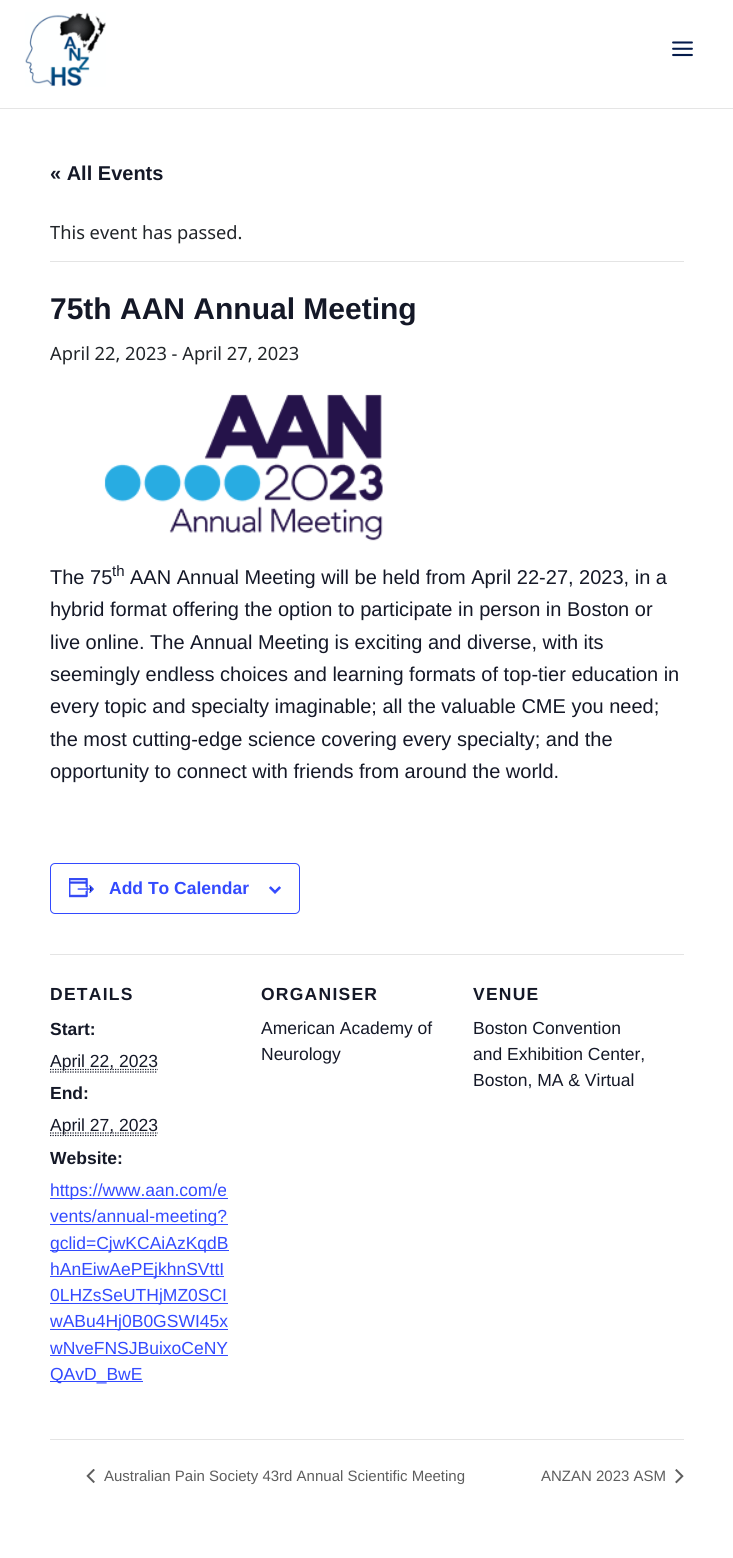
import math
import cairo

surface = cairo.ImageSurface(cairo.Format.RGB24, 733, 1558)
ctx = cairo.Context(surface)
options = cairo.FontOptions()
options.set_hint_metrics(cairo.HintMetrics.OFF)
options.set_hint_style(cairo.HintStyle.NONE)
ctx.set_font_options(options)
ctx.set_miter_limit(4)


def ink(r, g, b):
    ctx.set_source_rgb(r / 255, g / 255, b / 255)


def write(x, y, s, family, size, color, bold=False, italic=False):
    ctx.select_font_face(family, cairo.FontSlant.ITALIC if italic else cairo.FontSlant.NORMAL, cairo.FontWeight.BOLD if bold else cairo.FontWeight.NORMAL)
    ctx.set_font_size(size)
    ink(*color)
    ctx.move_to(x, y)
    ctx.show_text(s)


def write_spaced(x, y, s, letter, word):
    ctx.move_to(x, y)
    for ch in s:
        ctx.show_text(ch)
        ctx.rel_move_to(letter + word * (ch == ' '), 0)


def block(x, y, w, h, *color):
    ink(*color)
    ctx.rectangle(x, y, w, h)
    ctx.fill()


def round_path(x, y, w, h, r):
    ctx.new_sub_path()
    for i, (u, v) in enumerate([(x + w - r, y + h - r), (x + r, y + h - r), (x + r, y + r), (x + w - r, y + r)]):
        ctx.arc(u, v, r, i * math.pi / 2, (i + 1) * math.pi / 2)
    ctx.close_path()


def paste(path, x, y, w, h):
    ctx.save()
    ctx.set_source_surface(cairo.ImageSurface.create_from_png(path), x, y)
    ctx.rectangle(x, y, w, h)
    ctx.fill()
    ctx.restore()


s1 = dict(family="Liberation Sans", size=20, color=(20, 24, 39), bold=True)
s2 = dict(family="Noto Sans", size=18.25, color=(33, 37, 41))
s3 = dict(family="Liberation Sans", size=30, color=(20, 24, 39), bold=True)
s4 = dict(family="Liberation Sans", size=20, color=(20, 24, 39))
s5 = dict(family="Liberation Sans", size=15, color=(20, 24, 39))
s6 = dict(family="Liberation Sans", size=17.5, color=(51, 74, 255), bold=True)
s7 = dict(family="Liberation Sans", size=17.5, color=(20, 24, 39), bold=True)
s8 = dict(family="Liberation Sans", size=17.5, color=(20, 24, 39))
s9 = dict(family="Liberation Sans", size=17.5, color=(51, 74, 255))
s10 = dict(family="Liberation Sans", size=15, color=(93, 93, 93))

ink(255, 255, 255)
ctx.paint()
block(0, 108, 733, 1, 229, 229, 229)
paste("pic1.png", 25, 12, 81, 75)
paste("pic2.png", 672, 41, 21, 16)
write(50, 180, "« All Events", **s1)
block(50, 261, 634, 1, 228, 228, 228)
write(50, 239, "This event has passed.", **s2)
write(50, 319, "75th AAN Annual Meeting", **s3)
write(50, 360, "April 22, 2023 - April 27, 2023", **s2)
paste("pic3.png", 104, 394, 279, 147)
write(50, 584, "The 75", **s4)
write(112, 576, "th", **s5)
write(130, 584, "AAN Annual Meeting will be held from April 22-27, 2023, in a", **s4)
write(50, 616, "hybrid format offering the option to participate in person in Boston or", **s4)
write(50, 649, "live online. The Annual Meeting is exciting and diverse, with its", **s4)
write(50, 681, "seemingly endless choices and learning formats of top-tier education in", **s4)
write(50, 713, "every topic and specialty imaginable; all the valuable CME you need;", **s4)
write(50, 746, "the most cutting-edge science covering every specialty; and the", **s4)
write(50, 778, "opportunity to connect with friends from around the world.", **s4)
round_path(50.5, 863.5, 249, 50, 4.5)
ink(51, 74, 255)
ctx.set_line_width(1)
ctx.stroke()
paste("pic4.png", 69, 878, 25, 20)
write(109, 894, "Add To Calendar", **s6)
paste("pic5.png", 269, 886, 12, 8)
block(50, 954, 634, 1, 228, 228, 228)
ink(20, 24, 39)
write_spaced(50, 1000, "DETAILS", 1.25, 0)
write(50, 1035, "Start:", **s7)
ctx.new_path()
ctx.move_to(50, 1069.5)
ctx.line_to(158, 1069.5)
ctx.set_line_width(1.2)
ctx.set_dash([1.25, 1.25])
ctx.stroke()
write(50, 1067, "April 22, 2023", **s8)
ctx.new_path()
ctx.move_to(50, 1072)
ctx.line_to(157.5, 1072)
ctx.stroke()
write(50, 1099, "End:", **s7)
ctx.new_path()
ctx.move_to(50, 1135.5)
ctx.line_to(157.5, 1135.5)
ctx.stroke()
ctx.new_path()
ctx.move_to(50, 1133)
ctx.line_to(158, 1133)
ctx.stroke()
write(50, 1131, "April 27, 2023", **s8)
write(50, 1164, "Website:", **s7)
block(50, 1198, 178, 1, 51, 74, 255)
write(50, 1196, "https://www.aan.com/e", **s9)
block(50, 1224, 178, 1, 51, 74, 255)
write(50, 1222, "vents/annual-meeting?", **s9)
block(50, 1250, 179, 1, 51, 74, 255)
write(50, 1249, "gclid=CjwKCAiAzKqdB", **s9)
block(50, 1276, 174, 1, 51, 74, 255)
write(50, 1275, "hAnEiwAePEjkhnSVttI", **s9)
block(50, 1303, 178, 1, 51, 74, 255)
write(50, 1301, "0LHZsSeUTHjMZ0SCI", **s9)
block(50, 1329, 178, 1, 51, 74, 255)
write(50, 1327, "wABu4Hj0B0GSWI45x", **s9)
write(50, 1354, "wNveFNSJBuixoCeNY", **s9)
block(50, 1355, 178, 1, 51, 74, 255)
block(50, 1381, 93, 1, 51, 74, 255)
write(50, 1380, "QAvD_BwE", **s9)
ctx.select_font_face("Liberation Sans", cairo.FontSlant.NORMAL, cairo.FontWeight.BOLD)
ink(20, 24, 39)
write_spaced(261, 1000, "ORGANISER", 1.25, 0)
write(261, 1034, "American Academy of", **s8)
write(261, 1060, "Neurology", **s8)
ctx.select_font_face("Liberation Sans", cairo.FontSlant.NORMAL, cairo.FontWeight.BOLD)
write_spaced(473, 1000, "VENUE", 1.25, 0)
write(473, 1034, "Boston Convention", **s8)
write(473, 1060, "and Exhibition Center,", **s8)
write(473, 1086, "Boston, MA & Virtual", **s8)
block(50, 1439, 634, 1, 228, 228, 228)
paste("pic6.png", 86, 1469, 9, 14)
write(104, 1481, "Australian Pain Society 43rd Annual Scientific Meeting", **s10)
write(541, 1481, "ANZAN 2023 ASM", **s10)
paste("pic7.png", 675, 1469, 9, 15)
surface.write_to_png("screenshot.png")
